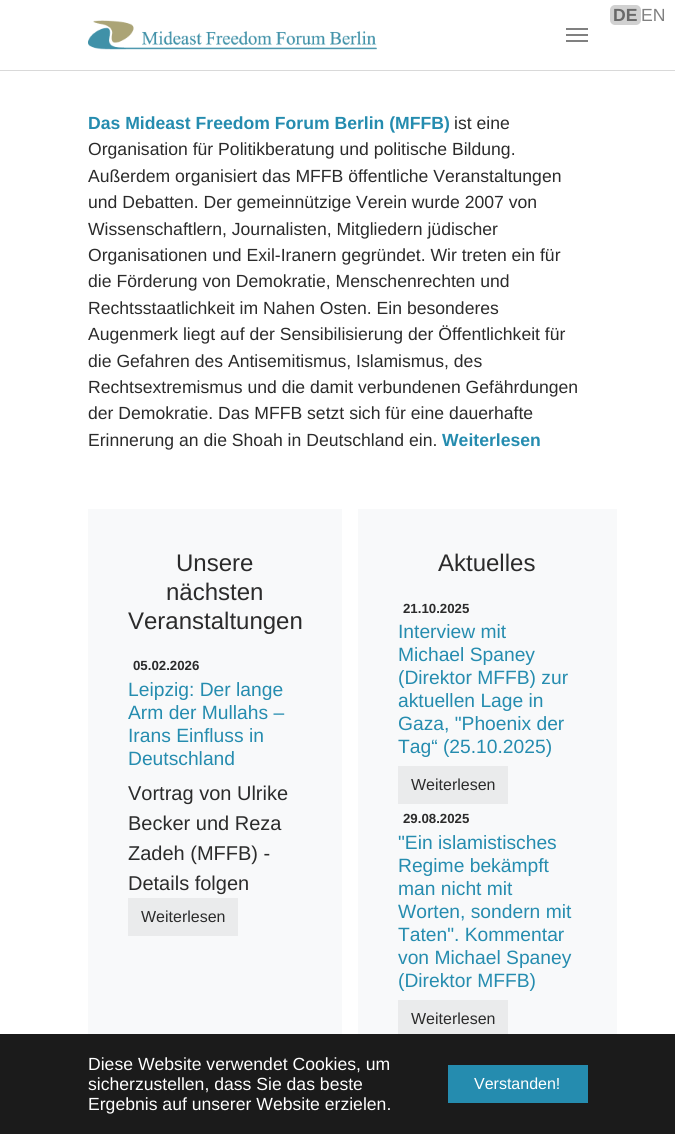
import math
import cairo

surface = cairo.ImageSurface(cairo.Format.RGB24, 675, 1134)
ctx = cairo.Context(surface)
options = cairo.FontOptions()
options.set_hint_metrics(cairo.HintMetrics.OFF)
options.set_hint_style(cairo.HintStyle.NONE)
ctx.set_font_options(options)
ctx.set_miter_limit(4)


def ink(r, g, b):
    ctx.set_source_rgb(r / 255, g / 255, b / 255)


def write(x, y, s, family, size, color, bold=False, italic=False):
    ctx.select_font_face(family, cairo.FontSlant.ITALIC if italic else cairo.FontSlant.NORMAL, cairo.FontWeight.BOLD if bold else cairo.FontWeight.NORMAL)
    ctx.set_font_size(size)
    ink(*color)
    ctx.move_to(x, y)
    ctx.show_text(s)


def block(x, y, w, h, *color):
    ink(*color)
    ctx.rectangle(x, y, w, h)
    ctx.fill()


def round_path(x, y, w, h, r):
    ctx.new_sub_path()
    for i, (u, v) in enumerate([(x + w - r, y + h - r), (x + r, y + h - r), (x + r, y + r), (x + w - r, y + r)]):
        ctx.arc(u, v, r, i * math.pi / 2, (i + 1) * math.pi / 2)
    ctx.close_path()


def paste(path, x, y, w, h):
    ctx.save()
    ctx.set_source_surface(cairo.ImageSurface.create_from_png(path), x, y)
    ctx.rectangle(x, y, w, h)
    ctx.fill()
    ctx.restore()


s1 = dict(family="Liberation Sans", size=17.6, color=(105, 105, 105), bold=True)
s2 = dict(family="Liberation Sans", size=17.6, color=(128, 128, 128))
s3 = dict(family="Liberation Sans", size=17.6, color=(37, 140, 175), bold=True)
s4 = dict(family="Liberation Sans", size=17.6, color=(43, 43, 43))
s5 = dict(family="Liberation Sans", size=24, color=(43, 43, 43))
s6 = dict(family="Liberation Sans", size=13.25, color=(43, 43, 43), bold=True)
s7 = dict(family="Liberation Sans", size=19.25, color=(37, 140, 175))
s8 = dict(family="Liberation Sans", size=20, color=(43, 43, 43))
s9 = dict(family="Liberation Sans", size=16, color=(43, 43, 43))
s10 = dict(family="Liberation Sans", size=17.6, color=(255, 255, 255))
s11 = dict(family="Liberation Sans", size=16, color=(255, 255, 255))

ink(255, 255, 255)
ctx.paint()
block(0, 70, 675, 1, 217, 217, 217)
ink(209, 209, 209)
round_path(610, 5, 31, 20, 5)
ctx.fill()
write(613, 21, "DE", **s1)
write(641, 21, "EN", **s2)
paste("pic1.png", 88, 20, 289, 30)
block(566, 34, 22, 2, 128, 128, 128)
block(566, 28, 22, 2, 128, 128, 128)
block(566, 40, 22, 2, 128, 128, 128)
write(88, 129, "Das Mideast Freedom Forum Berlin (MFFB)", **s3)
write(454, 129, "ist eine", **s4)
write(88, 155, "Organisation für Politikberatung und politische Bildung.", **s4)
write(88, 182, "Außerdem organisiert das MFFB öffentliche Veranstaltungen", **s4)
write(88, 208, "und Debatten. Der gemeinnützige Verein wurde 2007 von", **s4)
write(88, 235, "Wissenschaftlern, Journalisten, Mitgliedern jüdischer", **s4)
write(88, 261, "Organisationen und Exil-Iranern gegründet. Wir treten ein für", **s4)
write(88, 287, "die Förderung von Demokratie, Menschenrechten und", **s4)
write(88, 314, "Rechtsstaatlichkeit im Nahen Osten. Ein besonderes", **s4)
write(88, 340, "Augenmerk liegt auf der Sensibilisierung der Öffentlichkeit für", **s4)
write(88, 367, "die Gefahren des Antisemitismus, Islamismus, des", **s4)
write(88, 393, "Rechtsextremismus und die damit verbundenen Gefährdungen", **s4)
write(88, 419, "der Demokratie. Das MFFB setzt sich für eine dauerhafte", **s4)
write(88, 446, "Erinnerung an die Shoah in Deutschland ein.", **s4)
write(442, 446, "Weiterlesen", **s3)
block(88, 509, 254, 525, 248, 249, 250)
write(176, 571, "Unsere", **s5)
write(166, 600, "nächsten", **s5)
write(128, 629, "Veranstaltungen", **s5)
write(133, 670, "05.02.2026", **s6)
write(128, 696, "Leipzig: Der lange", **s7)
write(128, 719, "Arm der Mullahs –", **s7)
write(128, 742, "Irans Einfluss in", **s7)
write(128, 765, "Deutschland", **s7)
write(128, 800, "Vortrag von Ulrike", **s8)
write(128, 830, "Becker und Reza", **s8)
write(128, 860, "Zadeh (MFFB) -", **s8)
write(128, 890, "Details folgen", **s8)
block(128, 898, 110, 38, 234, 235, 236)
write(141, 922, "Weiterlesen", **s9)
block(358, 509, 259, 525, 248, 249, 250)
write(438, 571, "Aktuelles", **s5)
write(403, 613, "21.10.2025", **s6)
write(398, 638, "Interview mit", **s7)
write(398, 661, "Michael Spaney", **s7)
write(398, 684, "(Direktor MFFB) zur", **s7)
write(398, 707, "aktuellen Lage in", **s7)
write(398, 730, "Gaza, \"Phoenix der", **s7)
write(398, 753, "Tag“ (25.10.2025)", **s7)
block(398, 766, 110, 38, 234, 235, 236)
write(411, 790, "Weiterlesen", **s9)
write(403, 823, "29.08.2025", **s6)
write(398, 849, "\"Ein islamistisches", **s7)
write(398, 872, "Regime bekämpft", **s7)
write(398, 895, "man nicht mit", **s7)
write(398, 918, "Worten, sondern mit", **s7)
write(398, 941, "Taten\". Kommentar", **s7)
write(398, 964, "von Michael Spaney", **s7)
write(398, 987, "(Direktor MFFB)", **s7)
block(398, 1000, 110, 34, 234, 235, 236)
write(411, 1024, "Weiterlesen", **s9)
block(0, 1034, 675, 100, 27, 27, 27)
write(88, 1070, "Diese Website verwendet Cookies, um", **s10)
write(88, 1090, "sicherzustellen, dass Sie das beste", **s10)
write(88, 1110, "Ergebnis auf unserer Website erzielen.", **s10)
block(448, 1065, 140, 38, 37, 140, 175)
write(474, 1089, "Verstanden!", **s11)
surface.write_to_png("screenshot.png")
